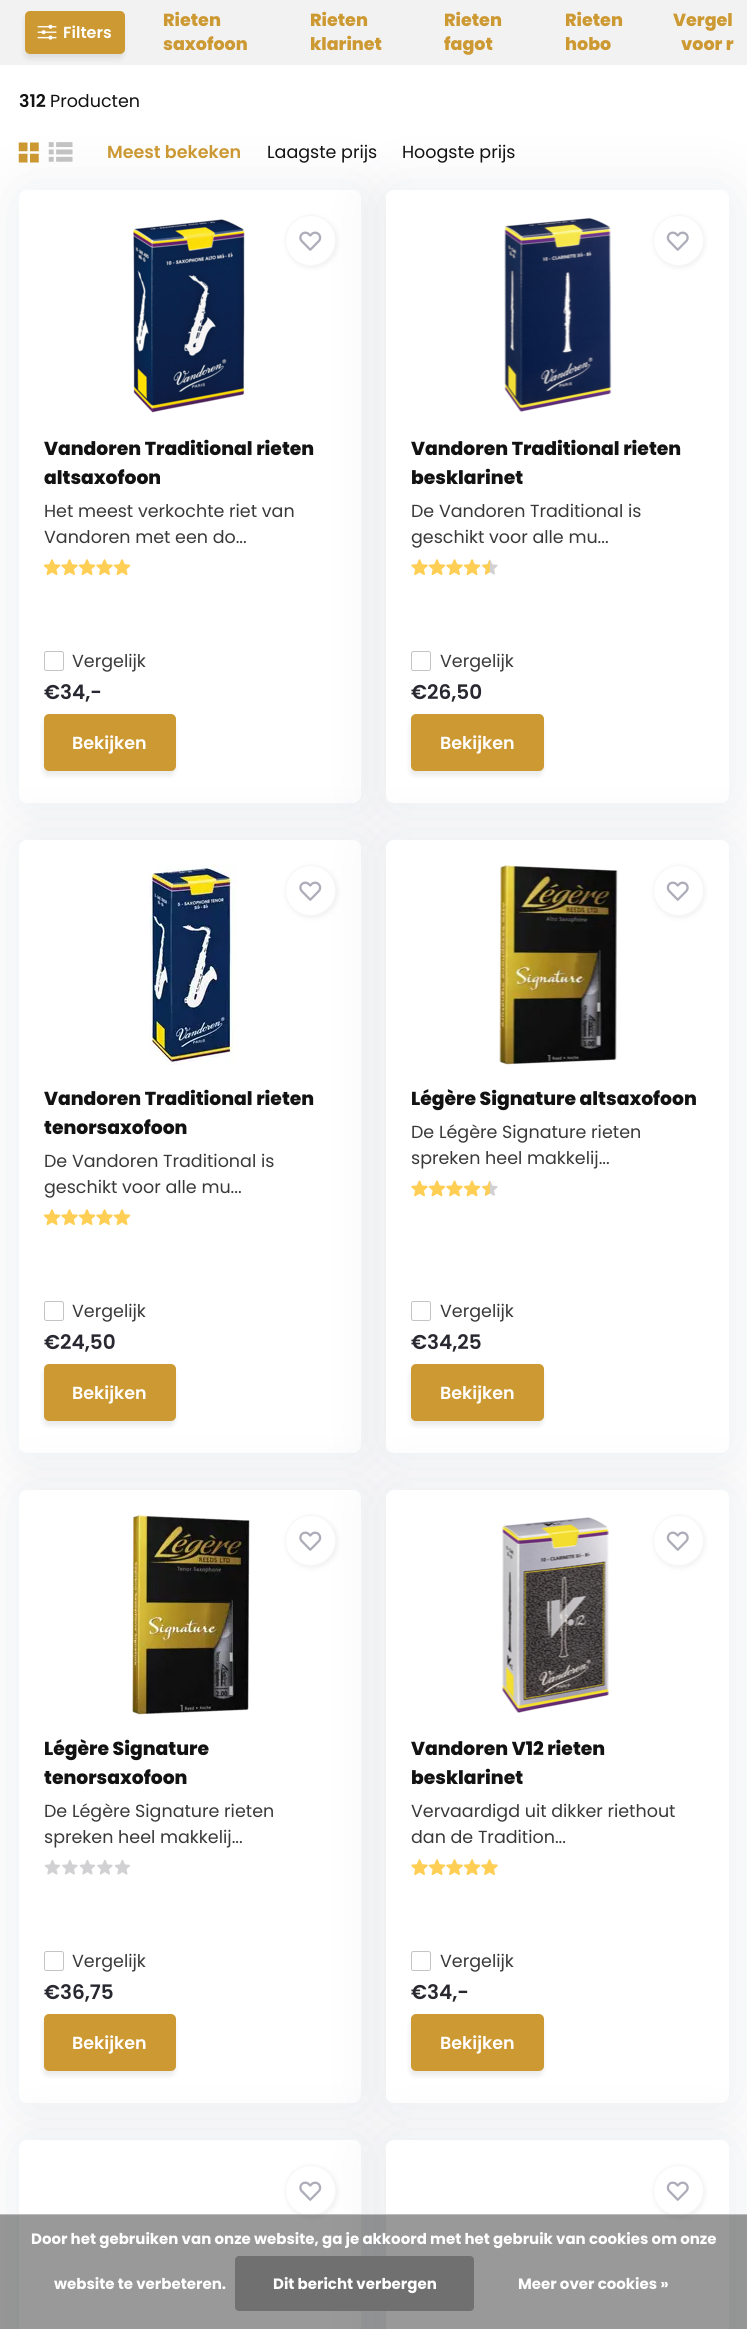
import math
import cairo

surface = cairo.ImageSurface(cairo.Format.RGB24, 747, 2329)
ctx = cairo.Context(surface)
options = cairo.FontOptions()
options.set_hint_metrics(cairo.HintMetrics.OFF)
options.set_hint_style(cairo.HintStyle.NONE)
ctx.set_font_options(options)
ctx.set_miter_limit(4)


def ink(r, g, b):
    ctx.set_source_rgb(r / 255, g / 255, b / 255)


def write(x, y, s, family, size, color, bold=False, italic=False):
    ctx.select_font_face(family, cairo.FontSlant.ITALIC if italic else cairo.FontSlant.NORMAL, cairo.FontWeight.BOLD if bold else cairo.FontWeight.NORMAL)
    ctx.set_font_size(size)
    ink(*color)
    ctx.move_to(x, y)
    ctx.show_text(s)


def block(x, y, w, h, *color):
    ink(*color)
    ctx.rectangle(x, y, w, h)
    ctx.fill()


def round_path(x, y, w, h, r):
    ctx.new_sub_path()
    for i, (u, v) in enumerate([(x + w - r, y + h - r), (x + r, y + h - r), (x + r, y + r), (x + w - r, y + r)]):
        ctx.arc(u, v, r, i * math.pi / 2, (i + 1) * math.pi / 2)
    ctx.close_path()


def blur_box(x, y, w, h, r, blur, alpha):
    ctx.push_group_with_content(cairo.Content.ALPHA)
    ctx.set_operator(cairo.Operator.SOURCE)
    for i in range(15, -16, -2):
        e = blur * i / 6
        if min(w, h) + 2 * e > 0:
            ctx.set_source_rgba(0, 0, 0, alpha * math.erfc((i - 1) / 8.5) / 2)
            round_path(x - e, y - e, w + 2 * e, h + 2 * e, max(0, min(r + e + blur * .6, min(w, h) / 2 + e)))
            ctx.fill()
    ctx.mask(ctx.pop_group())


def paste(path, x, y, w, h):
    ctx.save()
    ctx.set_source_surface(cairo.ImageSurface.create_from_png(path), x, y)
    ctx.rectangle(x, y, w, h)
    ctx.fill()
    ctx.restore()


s1 = dict(family="Poppins SemiBold", size=16, color=(255, 255, 255))
s2 = dict(family="Poppins ExtraBold", size=17.5, color=(205, 153, 50))
s3 = dict(family="Poppins SemiBold", size=17.5, color=(18, 18, 18))
s4 = dict(family="Poppins", size=17.5, color=(18, 18, 18))
s5 = dict(family="Poppins SemiBold", size=17.5, color=(205, 153, 50))
s6 = dict(family="Poppins ExtraBold", size=18.75, color=(18, 18, 18))
s7 = dict(family="Poppins", size=17.5, color=(57, 57, 57))
s8 = dict(family="Poppins SemiBold", size=20, color=(40, 40, 48))
s9 = dict(family="Poppins SemiBold", size=17.5, color=(255, 255, 255))
s10 = dict(family="Poppins", size=15, color=(255, 255, 255), bold=True)

ink(255, 255, 255)
ctx.paint()
block(0, 0, 747, 65, 242, 242, 242)
ink(0, 0, 0)
blur_box(24, 16, 100, 43, 5, 2.5, 0.08)
ink(205, 153, 50)
round_path(25, 11, 100, 43, 5)
ctx.fill()
paste("pic1.png", 37, 24, 20, 16)
write(63, 38, "Filters", **s1)
write(163, 26, "Rieten", **s2)
write(163, 50, "saxofoon", **s2)
write(310, 26, "Rieten", **s2)
write(310, 50, "klarinet", **s2)
write(444, 26, "Rieten", **s2)
write(444, 50, "fagot", **s2)
write(565, 26, "Rieten", **s2)
write(565, 50, "hobo", **s2)
write(673, 26, "Vergel", **s2)
write(681, 50, "voor r", **s2)
write(19, 107, "312", **s3)
write(50, 107, "Producten", **s4)
paste("pic2.png", 18, 142, 21, 21)
paste("pic3.png", 48, 142, 25, 20)
write(107, 158, "Meest bekeken", **s5)
write(267, 158, "Laagste prijs", **s4)
write(402, 158, "Hoogste prijs", **s4)
ink(38, 63, 77)
blur_box(21, 193, 343, 612, 8, 31, 0.1)
ink(255, 255, 255)
round_path(19, 190, 342, 613, 8)
ctx.fill()
paste("pic4.png", 133, 219, 112, 194)
ink(0, 0, 0)
blur_box(286, 216, 52, 52, 26, 2.5, 0.06)
ink(38, 63, 77)
blur_box(389, 193, 342, 612, 8, 31, 0.1)
ink(255, 255, 255)
ctx.arc(310.5, 240.5, 25, 0, 2 * math.pi)
ctx.fill_preserve()
ink(246, 246, 246)
ctx.set_line_width(1)
ctx.stroke()
paste("pic5.png", 299, 231, 23, 20)
write(44, 455, "Vandoren Traditional rieten", **s6)
write(44, 484, "altsaxofoon", **s6)
write(44, 517, "Het meest verkochte riet van", **s7)
write(44, 543, "Vandoren met een do...", **s7)
paste("pic6.png", 43, 559, 18, 17)
paste("pic7.png", 61, 559, 17, 17)
paste("pic6.png", 78, 559, 18, 17)
paste("pic7.png", 96, 559, 17, 17)
paste("pic6.png", 113, 559, 18, 17)
round_path(44.5, 651.5, 19, 19, 2)
ink(196, 196, 196)
ctx.stroke()
write(72, 667, "Vergelijk", **s7)
write(44, 699, "€34,-", **s8)
ink(0, 0, 0)
blur_box(43, 719, 132, 57, 5, 2.5, 0.08)
ink(205, 153, 50)
round_path(44, 714, 132, 57, 5)
ctx.fill()
write(72, 749, "Bekijken", **s9)
round_path(386, 190, 343, 613, 8)
ctx.fill()
paste("pic8.png", 504, 218, 108, 194)
ink(0, 0, 0)
blur_box(654, 216, 51, 52, 25.5, 2.5, 0.06)
ink(255, 255, 255)
ctx.arc(678.5, 240.5, 25, 0, 2 * math.pi)
ctx.fill_preserve()
ink(246, 246, 246)
ctx.stroke()
paste("pic9.png", 666, 231, 23, 20)
write(411, 455, "Vandoren Traditional rieten", **s6)
write(411, 484, "besklarinet", **s6)
write(411, 517, "De Vandoren Traditional is", **s7)
write(411, 543, "geschikt voor alle mu...", **s7)
paste("pic7.png", 411, 559, 17, 17)
paste("pic6.png", 428, 559, 18, 17)
paste("pic7.png", 446, 559, 17, 17)
paste("pic6.png", 463, 559, 18, 17)
paste("pic10.png", 482, 559, 16, 16)
paste("pic11.png", 482, 559, 8, 16)
round_path(411.5, 651.5, 19, 19, 2)
ink(196, 196, 196)
ctx.stroke()
write(440, 667, "Vergelijk", **s7)
write(411, 699, "€26,50", **s8)
ink(0, 0, 0)
blur_box(410, 719, 133, 57, 5, 2.5, 0.08)
ink(205, 153, 50)
round_path(411, 714, 133, 57, 5)
ctx.fill()
write(440, 749, "Bekijken", **s9)
ink(38, 63, 77)
blur_box(21, 843, 343, 612, 8, 31, 0.1)
ink(255, 255, 255)
round_path(19, 840, 342, 613, 8)
ctx.fill()
paste("pic12.png", 149, 865, 88, 200)
ink(0, 0, 0)
blur_box(286, 866, 52, 52, 26, 2.5, 0.06)
ink(38, 63, 77)
blur_box(389, 843, 342, 612, 8, 31, 0.1)
ink(255, 255, 255)
ctx.arc(310.5, 890.5, 25, 0, 2 * math.pi)
ctx.fill_preserve()
ink(246, 246, 246)
ctx.stroke()
paste("pic5.png", 299, 881, 23, 20)
write(44, 1105, "Vandoren Traditional rieten", **s6)
write(44, 1134, "tenorsaxofoon", **s6)
write(44, 1167, "De Vandoren Traditional is", **s7)
write(44, 1193, "geschikt voor alle mu...", **s7)
paste("pic6.png", 43, 1209, 18, 17)
paste("pic7.png", 61, 1209, 17, 17)
paste("pic6.png", 78, 1209, 18, 17)
paste("pic7.png", 96, 1209, 17, 17)
paste("pic6.png", 113, 1209, 18, 17)
round_path(44.5, 1301.5, 19, 19, 2)
ink(196, 196, 196)
ctx.stroke()
write(72, 1317, "Vergelijk", **s7)
write(44, 1349, "€24,50", **s8)
ink(0, 0, 0)
blur_box(43, 1369, 132, 57, 5, 2.5, 0.08)
ink(205, 153, 50)
round_path(44, 1364, 132, 57, 5)
ctx.fill()
write(72, 1399, "Bekijken", **s9)
round_path(386, 840, 343, 613, 8)
ctx.fill()
paste("pic13.png", 499, 865, 119, 200)
ink(0, 0, 0)
blur_box(654, 866, 51, 52, 25.5, 2.5, 0.06)
ink(255, 255, 255)
ctx.arc(678.5, 890.5, 25, 0, 2 * math.pi)
ctx.fill_preserve()
ink(246, 246, 246)
ctx.stroke()
paste("pic9.png", 666, 881, 23, 20)
write(411, 1105, "Légère Signature altsaxofoon", **s6)
write(411, 1138, "De Légère Signature rieten", **s7)
write(411, 1164, "spreken heel makkelij...", **s7)
paste("pic14.png", 411, 1180, 17, 17)
paste("pic15.png", 428, 1180, 18, 17)
paste("pic14.png", 446, 1180, 17, 17)
paste("pic15.png", 463, 1180, 18, 17)
paste("pic16.png", 482, 1181, 16, 15)
paste("pic17.png", 482, 1181, 8, 15)
round_path(411.5, 1301.5, 19, 19, 2)
ink(196, 196, 196)
ctx.stroke()
write(440, 1317, "Vergelijk", **s7)
write(411, 1349, "€34,25", **s8)
ink(0, 0, 0)
blur_box(410, 1369, 133, 57, 5, 2.5, 0.08)
ink(205, 153, 50)
round_path(411, 1364, 133, 57, 5)
ctx.fill()
write(440, 1399, "Bekijken", **s9)
ink(38, 63, 77)
blur_box(21, 1493, 343, 612, 8, 31, 0.1)
ink(255, 255, 255)
round_path(19, 1490, 342, 613, 8)
ctx.fill()
paste("pic18.png", 132, 1515, 118, 200)
ink(0, 0, 0)
blur_box(286, 1516, 52, 52, 26, 2.5, 0.06)
ink(38, 63, 77)
blur_box(389, 1493, 342, 612, 8, 31, 0.1)
ink(255, 255, 255)
ctx.arc(310.5, 1540.5, 25, 0, 2 * math.pi)
ctx.fill_preserve()
ink(246, 246, 246)
ctx.stroke()
paste("pic5.png", 299, 1531, 23, 20)
write(44, 1755, "Légère Signature", **s6)
write(44, 1784, "tenorsaxofoon", **s6)
write(44, 1817, "De Légère Signature rieten", **s7)
write(44, 1843, "spreken heel makkelij...", **s7)
paste("pic19.png", 44, 1859, 16, 16)
paste("pic10.png", 62, 1859, 16, 16)
paste("pic19.png", 79, 1859, 16, 16)
paste("pic10.png", 97, 1859, 16, 16)
paste("pic19.png", 114, 1859, 16, 16)
round_path(44.5, 1951.5, 19, 19, 2)
ink(196, 196, 196)
ctx.stroke()
write(72, 1967, "Vergelijk", **s7)
write(44, 1999, "€36,75", **s8)
ink(0, 0, 0)
blur_box(43, 2019, 132, 57, 5, 2.5, 0.08)
ink(205, 153, 50)
round_path(44, 2014, 132, 57, 5)
ctx.fill()
write(72, 2049, "Bekijken", **s9)
round_path(386, 1490, 343, 613, 8)
ctx.fill()
paste("pic20.png", 502, 1517, 107, 196)
ink(0, 0, 0)
blur_box(654, 1516, 51, 52, 25.5, 2.5, 0.06)
ink(255, 255, 255)
ctx.arc(678.5, 1540.5, 25, 0, 2 * math.pi)
ctx.fill_preserve()
ink(246, 246, 246)
ctx.stroke()
paste("pic9.png", 666, 1531, 23, 20)
write(411, 1755, "Vandoren V12 rieten", **s6)
write(411, 1784, "besklarinet", **s6)
write(411, 1817, "Vervaardigd uit dikker riethout", **s7)
write(411, 1843, "dan de Tradition...", **s7)
paste("pic7.png", 411, 1859, 17, 17)
paste("pic6.png", 428, 1859, 18, 17)
paste("pic7.png", 446, 1859, 17, 17)
paste("pic6.png", 463, 1859, 18, 17)
paste("pic7.png", 481, 1859, 17, 17)
round_path(411.5, 1951.5, 19, 19, 2)
ink(196, 196, 196)
ctx.stroke()
write(440, 1967, "Vergelijk", **s7)
write(411, 1999, "€34,-", **s8)
ink(0, 0, 0)
blur_box(410, 2019, 133, 57, 5, 2.5, 0.08)
ink(205, 153, 50)
round_path(411, 2014, 133, 57, 5)
ctx.fill()
write(440, 2049, "Bekijken", **s9)
ink(38, 63, 77)
blur_box(21, 2143, 343, 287, 8, 31, 0.1)
ink(255, 255, 255)
round_path(19, 2140, 342, 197, 8)
ctx.fill()
ink(0, 0, 0)
blur_box(286, 2166, 52, 52, 26, 2.5, 0.06)
ink(38, 63, 77)
blur_box(389, 2143, 342, 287, 8, 31, 0.1)
ink(255, 255, 255)
ctx.arc(310.5, 2190.5, 25, 0, 2 * math.pi)
ctx.fill_preserve()
ink(246, 246, 246)
ctx.stroke()
paste("pic5.png", 299, 2181, 23, 20)
ink(255, 255, 255)
round_path(386, 2140, 343, 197, 8)
ctx.fill()
ink(0, 0, 0)
blur_box(654, 2166, 51, 52, 25.5, 2.5, 0.06)
ink(255, 255, 255)
ctx.arc(678.5, 2190.5, 25, 0, 2 * math.pi)
ctx.fill_preserve()
ink(246, 246, 246)
ctx.stroke()
paste("pic9.png", 666, 2181, 23, 20)
ctx.set_source_rgba(0, 0, 0, 0.4)
ctx.rectangle(0, 2215, 747, 114)
ctx.fill()
block(0, 2214, 747, 1, 187, 187, 187)
write(31, 2244, "Door het gebruiken van onze website, ga je akkoord met het gebruik van cookies om onze", **s10)
write(54, 2289, "website te verbeteren.", **s10)
ink(112, 112, 112)
round_path(235, 2256, 239, 55, 4)
ctx.fill()
write(273, 2289, "Dit bericht verbergen", **s10)
write(518, 2289, "Meer over cookies »", **s10)
surface.write_to_png("screenshot.png")
